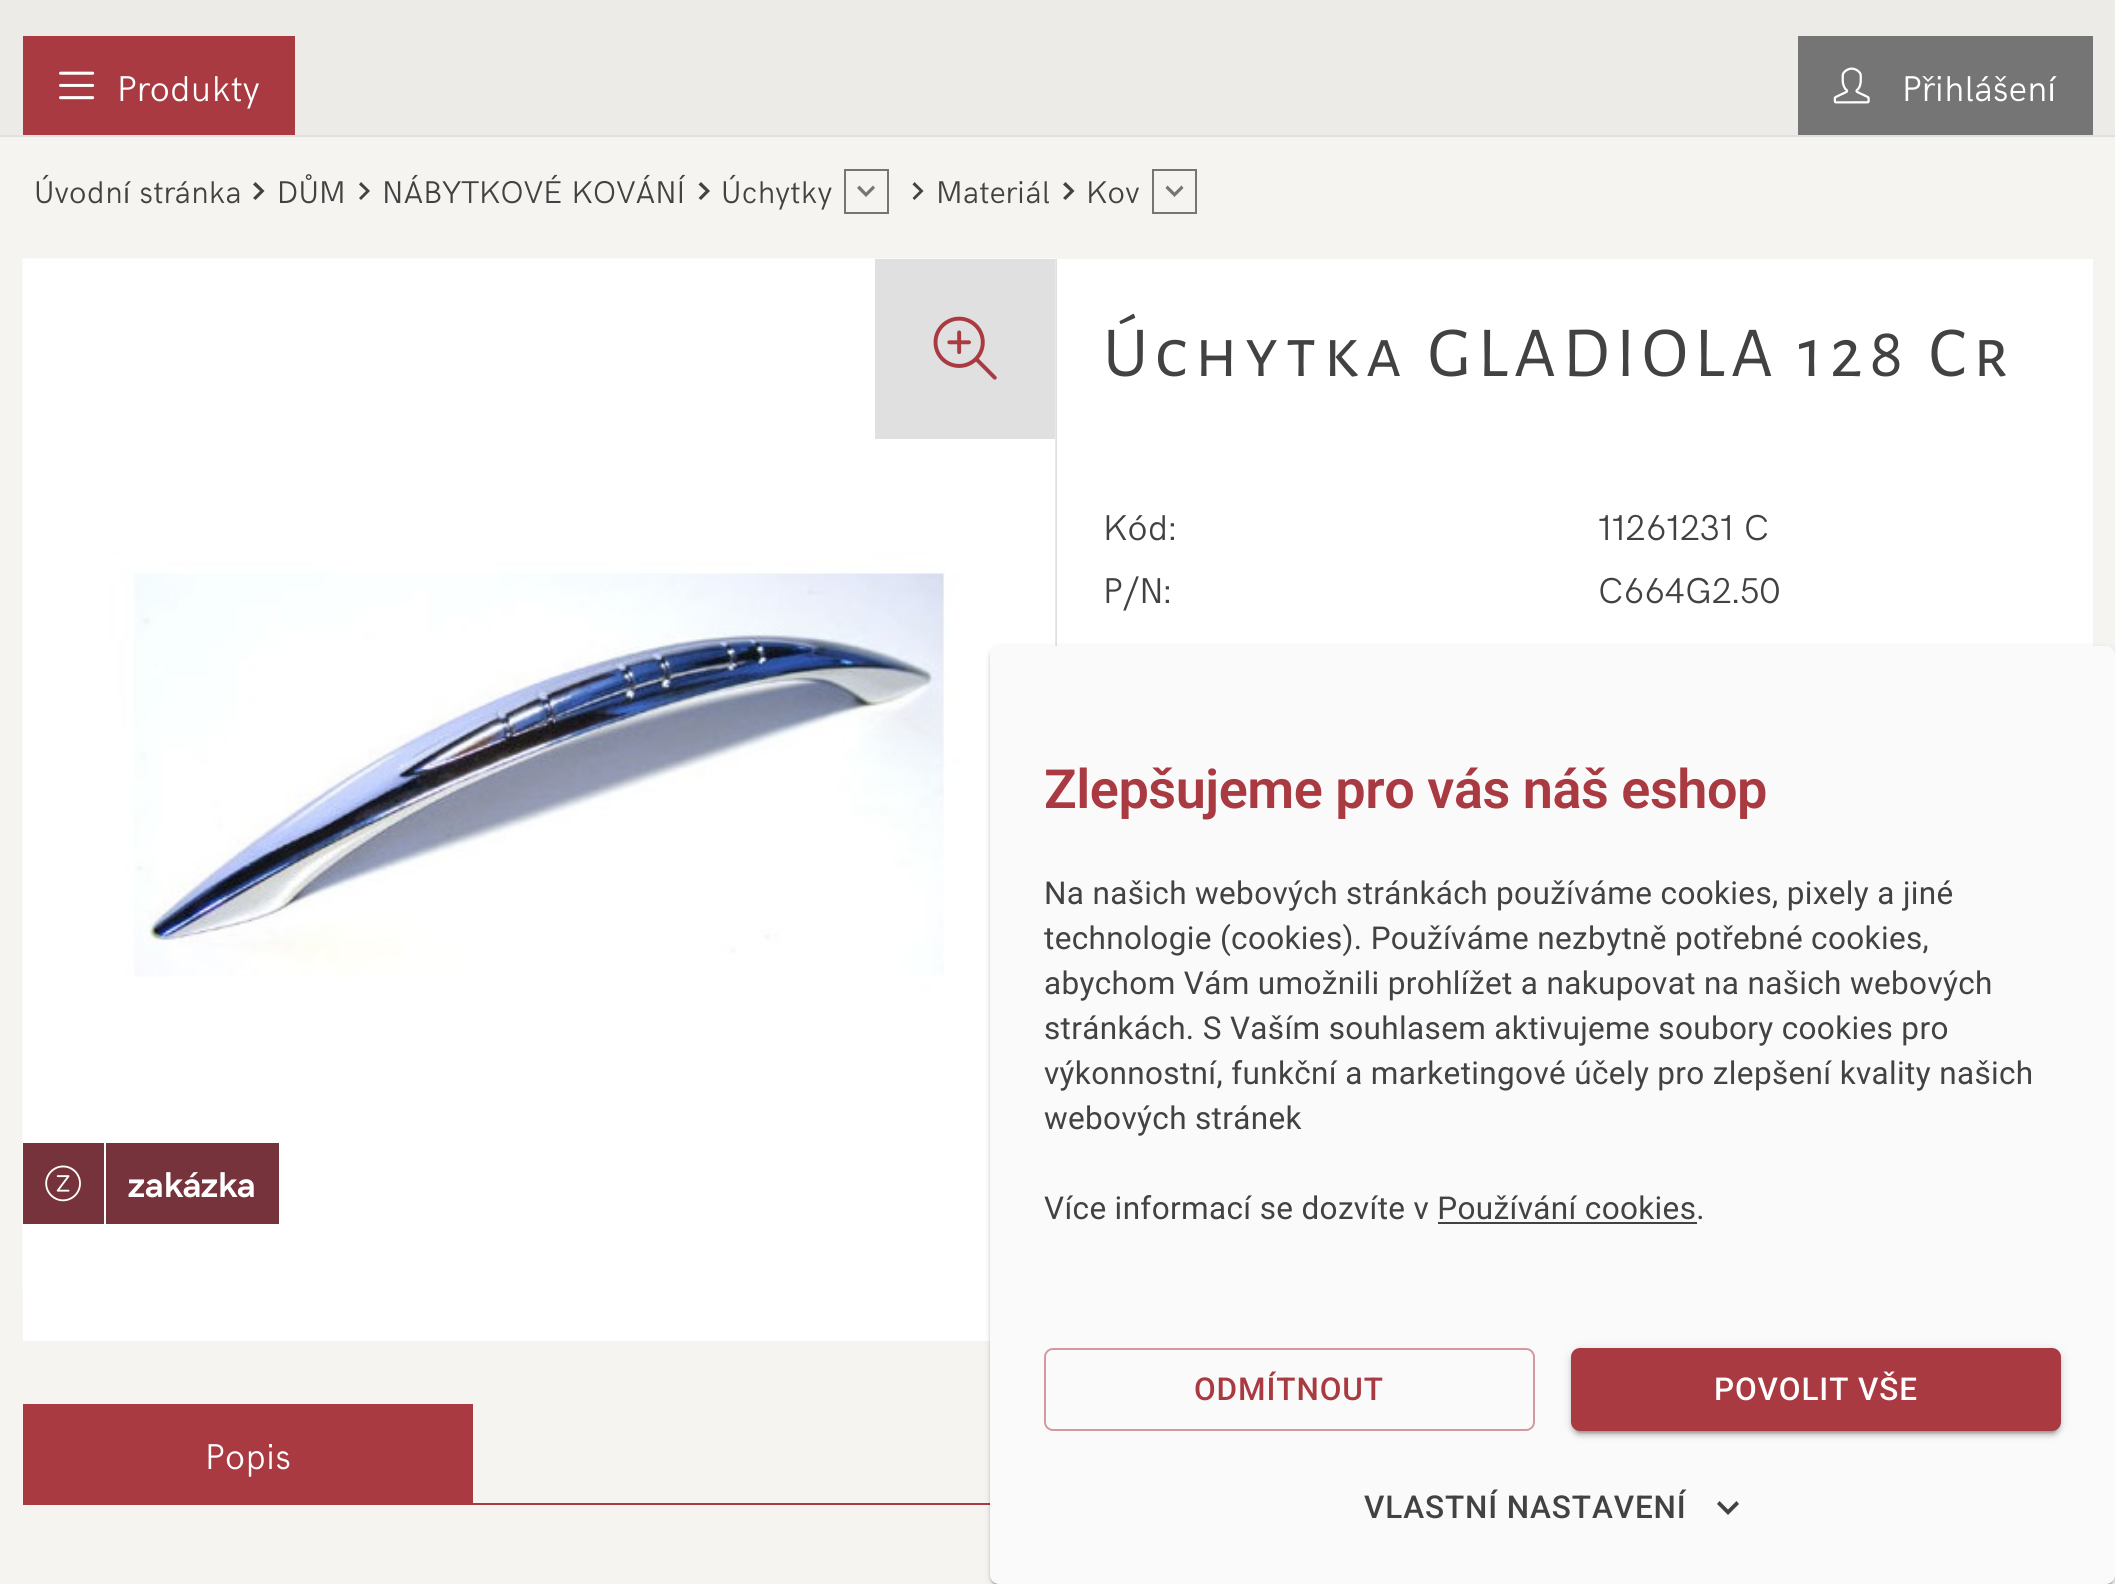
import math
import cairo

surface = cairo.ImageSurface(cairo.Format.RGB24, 2115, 1584)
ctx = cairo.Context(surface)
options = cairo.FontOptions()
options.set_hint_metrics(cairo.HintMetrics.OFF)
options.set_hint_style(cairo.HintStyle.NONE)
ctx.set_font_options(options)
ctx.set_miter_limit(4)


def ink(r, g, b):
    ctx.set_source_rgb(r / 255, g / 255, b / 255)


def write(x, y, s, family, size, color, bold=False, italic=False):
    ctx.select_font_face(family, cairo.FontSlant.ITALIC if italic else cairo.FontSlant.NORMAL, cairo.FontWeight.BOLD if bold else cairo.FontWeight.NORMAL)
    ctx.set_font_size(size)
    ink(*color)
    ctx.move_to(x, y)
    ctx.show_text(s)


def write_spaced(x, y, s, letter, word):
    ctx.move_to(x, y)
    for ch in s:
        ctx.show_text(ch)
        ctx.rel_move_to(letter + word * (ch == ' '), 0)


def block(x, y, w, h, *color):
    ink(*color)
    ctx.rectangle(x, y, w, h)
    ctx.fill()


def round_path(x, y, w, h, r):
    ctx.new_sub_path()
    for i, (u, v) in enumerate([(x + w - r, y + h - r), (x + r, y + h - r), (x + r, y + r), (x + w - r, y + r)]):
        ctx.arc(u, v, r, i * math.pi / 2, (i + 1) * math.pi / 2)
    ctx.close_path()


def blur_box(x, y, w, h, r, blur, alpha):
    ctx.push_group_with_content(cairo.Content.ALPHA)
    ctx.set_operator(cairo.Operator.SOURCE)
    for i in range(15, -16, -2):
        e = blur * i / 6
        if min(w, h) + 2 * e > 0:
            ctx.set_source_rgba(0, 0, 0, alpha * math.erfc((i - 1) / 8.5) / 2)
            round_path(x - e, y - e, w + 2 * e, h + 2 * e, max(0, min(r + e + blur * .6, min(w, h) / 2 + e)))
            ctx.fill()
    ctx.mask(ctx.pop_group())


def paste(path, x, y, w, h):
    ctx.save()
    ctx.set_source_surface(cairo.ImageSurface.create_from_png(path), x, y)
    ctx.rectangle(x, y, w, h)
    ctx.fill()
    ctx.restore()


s1 = dict(family="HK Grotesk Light", size=36, color=(255, 255, 255))
s2 = dict(family="HK Grotesk Light", size=31.5, color=(66, 66, 66))
s3 = dict(family="HK Grotesk Light", size=36, color=(66, 66, 66))
s4 = dict(family="HK Grotesk", size=36, color=(255, 255, 255), bold=True)

ink(245, 244, 240)
ctx.paint()
block(0, 0, 2115, 135, 237, 235, 231)
block(0, 135, 2115, 2, 224, 224, 224)
block(23, 36, 272, 99, 170, 58, 65)
paste("pic1.png", 59, 71, 36, 29)
write(117, 101, "Produkty", **s1)
block(1798, 36, 295, 99, 117, 117, 117)
paste("pic2.png", 1833, 67, 37, 37)
write(1902, 101, "Přihlášení", **s1)
write(34, 203, "Úvodní stránka", **s2)
ctx.new_path()
ctx.move_to(253, 198)
ctx.line_to(260, 191)
ctx.line_to(253, 184.5)
ctx.line_to(255.5, 182)
ctx.line_to(264.5, 191)
ctx.line_to(255.5, 200)
ctx.close_path()
ctx.fill()
write(277, 203, "DŮM", **s2)
ctx.new_path()
ctx.move_to(359, 198)
ctx.line_to(366, 191)
ctx.line_to(359, 184.5)
ctx.line_to(361, 182)
ctx.line_to(370, 191)
ctx.line_to(361, 200)
ctx.close_path()
ctx.fill()
write(382, 203, "NÁBYTKOVÉ KOVÁNÍ", **s2)
ctx.new_path()
ctx.move_to(698.5, 198)
ctx.line_to(705.5, 191)
ctx.line_to(698.5, 184.5)
ctx.line_to(701, 182)
ctx.line_to(710, 191)
ctx.line_to(701, 200)
ctx.close_path()
ctx.fill()
write(721, 203, "Úchytky", **s2)
ctx.rectangle(845, 170, 43, 43)
ink(117, 117, 117)
ctx.stroke()
ctx.new_path()
ctx.move_to(859.5, 185.5)
ctx.line_to(866, 192.5)
ctx.line_to(873, 185.5)
ctx.line_to(875, 188)
ctx.line_to(866, 197)
ctx.line_to(857, 188)
ctx.close_path()
ctx.fill()
ink(66, 66, 66)
ctx.new_path()
ctx.move_to(912.5, 198)
ctx.line_to(919.5, 191)
ctx.line_to(912.5, 184.5)
ctx.line_to(914.5, 182)
ctx.line_to(923.5, 191)
ctx.line_to(914.5, 200)
ctx.close_path()
ctx.fill()
write(936, 203, "Materiál", **s2)
ctx.new_path()
ctx.move_to(1063, 198)
ctx.line_to(1070, 191)
ctx.line_to(1063, 184.5)
ctx.line_to(1065.5, 182)
ctx.line_to(1074.5, 191)
ctx.line_to(1065.5, 200)
ctx.close_path()
ctx.fill()
write(1086, 203, "Kov", **s2)
ctx.rectangle(1153, 170, 43, 43)
ink(117, 117, 117)
ctx.stroke()
ctx.new_path()
ctx.move_to(1167.5, 185.5)
ctx.line_to(1174.5, 192.5)
ctx.line_to(1181.5, 185.5)
ctx.line_to(1183.5, 188)
ctx.line_to(1174.5, 197)
ctx.line_to(1165.5, 188)
ctx.close_path()
ctx.fill()
block(23, 259, 2070, 1082, 255, 255, 255)
ctx.select_font_face("Alegreya Sans SC")
ctx.set_font_size(72)
ink(66, 66, 66)
write_spaced(1103, 376, "Úchytka GLADIOLA 128 Cr", 6.75, 0)
write(1103, 540, "Kód:", **s3)
write(1598, 540, "11261231 C", **s3)
write(1103, 603, "P/N:", **s3)
write(1598, 603, "C664G2.50", **s3)
block(1055, 259, 2, 387, 224, 224, 224)
paste("pic3.png", 22, 258, 1034, 1033)
block(875, 259, 180, 180, 224, 224, 224)
paste("pic4.png", 933, 316, 64, 64)
block(23, 1143, 256, 81, 119, 51, 59)
paste("pic5.png", 45, 1165, 36, 37)
block(104, 1143, 2, 81, 255, 255, 255)
write(128, 1197, "zakázka", **s4)
block(23, 1503, 967, 2, 170, 58, 65)
block(23, 1404, 450, 99, 170, 58, 65)
write(205, 1469, "Popis", **s1)
ink(0, 0, 0)
blur_box(990, 648, 1125, 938, 9, 3.5, 0.12)
blur_box(990, 648, 1125, 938, 9, 1, 0.14)
blur_box(992, 653, 1121, 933, 7, 1, 0.2)
ink(250, 250, 250)
round_path(990, 646, 1125, 938, 9)
ctx.fill()
ctx.select_font_face("Roboto SemiBold")
ctx.set_font_size(54)
ink(170, 58, 65)
write_spaced(1044, 808, "Zlepšujeme pro vás náš eshop", -0.45, 0)
ctx.select_font_face("Roboto")
ctx.set_font_size(31.5)
ink(66, 66, 66)
write_spaced(1044, 904, "Na našich webových stránkách používáme cookies, pixely a jiné", 0.35, 0)
write_spaced(1044, 949, "technologie (cookies). Používáme nezbytně potřebné cookies,", 0.35, 0)
write_spaced(1044, 994, "abychom Vám umožnili prohlížet a nakupovat na našich webových", 0.35, 0)
write_spaced(1044, 1039, "stránkách. S Vaším souhlasem aktivujeme soubory cookies pro", 0.35, 0)
write_spaced(1044, 1084, "výkonnostní, funkční a marketingové účely pro zlepšení kvality našich", 0.35, 0)
write_spaced(1044, 1129, "webových stránek", 0.35, 0)
write_spaced(1044, 1219, "Více informací se dozvíte v Používání cookies.", 0.35, 0)
block(1438, 1222, 259, 2, 66, 66, 66)
round_path(1045, 1349, 489, 81, 8)
ink(210, 154, 158)
ctx.stroke()
ctx.select_font_face("Roboto Medium")
ink(170, 58, 65)
write_spaced(1194, 1400, "ODMÍTNOUT", 0.9, 0)
ink(0, 0, 0)
blur_box(1571, 1350, 490, 83, 9, 5.5, 0.12)
blur_box(1571, 1352, 490, 84, 9, 2, 0.14)
blur_box(1575, 1359, 482, 74, 5, 1, 0.2)
ink(170, 58, 65)
round_path(1571, 1348, 490, 83, 9)
ctx.fill()
ink(255, 255, 255)
write_spaced(1714, 1400, "POVOLIT VŠE", 0.9, 0)
ink(66, 66, 66)
write_spaced(1364, 1518, "VLASTNÍ NASTAVENÍ", 0.9, 0)
ctx.new_path()
ctx.move_to(1719.5, 1501)
ctx.line_to(1728, 1509.5)
ctx.line_to(1736.5, 1501)
ctx.line_to(1739, 1504)
ctx.line_to(1728, 1515)
ctx.line_to(1717, 1504)
ctx.close_path()
ctx.fill()
surface.write_to_png("screenshot.png")
